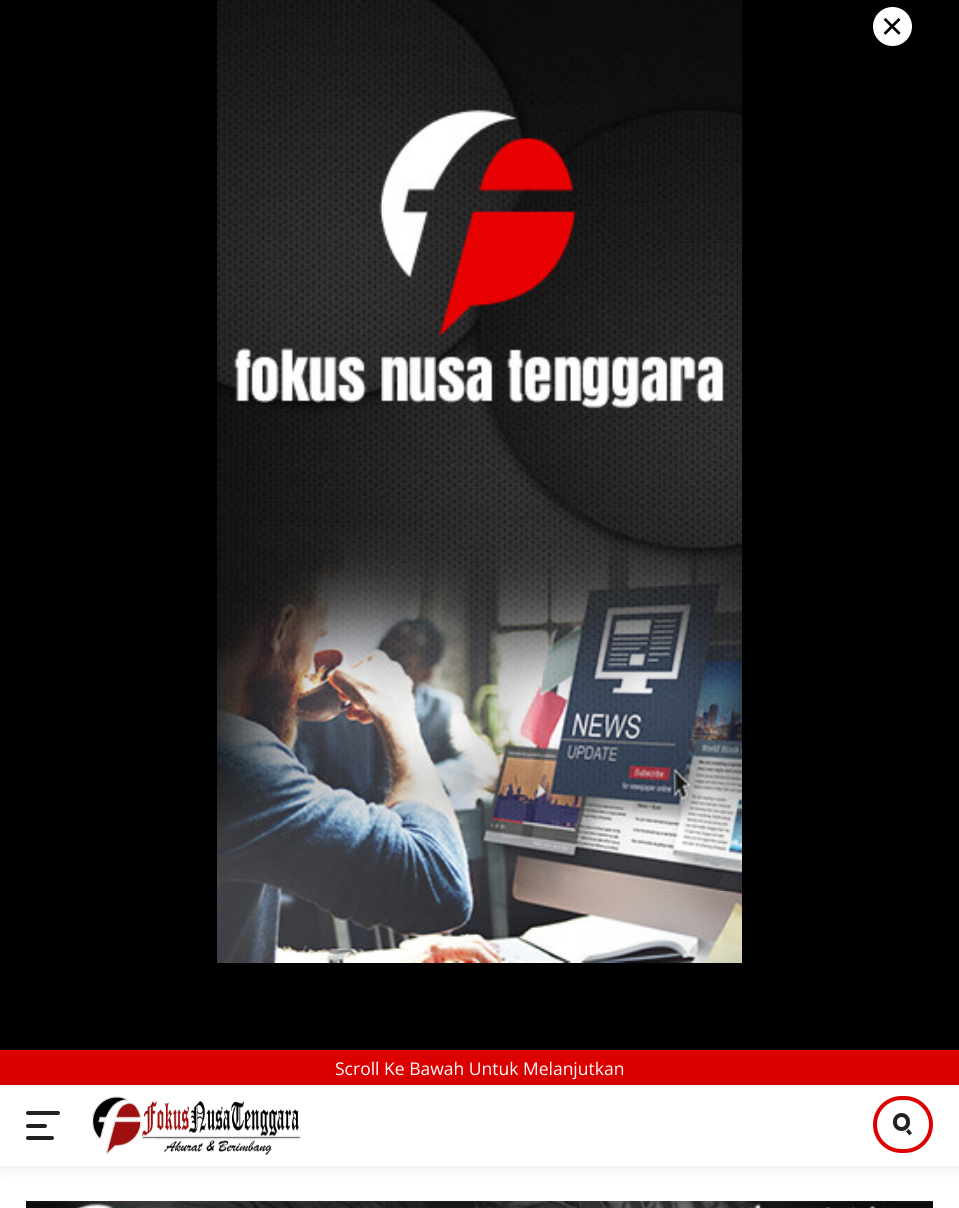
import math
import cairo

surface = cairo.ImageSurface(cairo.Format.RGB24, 959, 1208)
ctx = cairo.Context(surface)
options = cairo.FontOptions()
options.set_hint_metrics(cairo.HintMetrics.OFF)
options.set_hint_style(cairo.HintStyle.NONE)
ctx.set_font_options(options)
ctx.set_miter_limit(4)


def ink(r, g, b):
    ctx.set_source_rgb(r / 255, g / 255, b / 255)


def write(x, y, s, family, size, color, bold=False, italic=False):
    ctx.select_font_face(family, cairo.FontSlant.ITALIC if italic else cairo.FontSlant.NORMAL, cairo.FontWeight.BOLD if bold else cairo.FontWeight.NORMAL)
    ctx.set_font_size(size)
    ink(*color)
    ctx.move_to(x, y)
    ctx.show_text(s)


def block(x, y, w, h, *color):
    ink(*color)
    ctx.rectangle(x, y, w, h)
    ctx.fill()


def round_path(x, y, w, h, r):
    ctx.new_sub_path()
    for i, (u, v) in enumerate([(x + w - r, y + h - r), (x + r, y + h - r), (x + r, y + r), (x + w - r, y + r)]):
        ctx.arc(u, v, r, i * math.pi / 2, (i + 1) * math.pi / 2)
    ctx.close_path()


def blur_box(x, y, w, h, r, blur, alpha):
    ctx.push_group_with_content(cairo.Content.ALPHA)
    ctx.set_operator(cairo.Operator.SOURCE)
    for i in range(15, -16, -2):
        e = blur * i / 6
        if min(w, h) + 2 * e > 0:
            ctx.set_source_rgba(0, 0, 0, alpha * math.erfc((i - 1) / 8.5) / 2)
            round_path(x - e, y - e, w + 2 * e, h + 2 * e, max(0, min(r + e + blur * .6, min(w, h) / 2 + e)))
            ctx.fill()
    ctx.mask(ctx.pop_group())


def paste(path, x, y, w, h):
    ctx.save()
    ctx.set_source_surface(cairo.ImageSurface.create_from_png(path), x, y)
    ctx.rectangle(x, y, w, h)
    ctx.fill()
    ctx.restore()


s1 = dict(family="Liberation Sans", size=38, color=(0, 0, 0))
s2 = dict(family="Open Sans", size=17.5, color=(255, 255, 255))

ink(0, 0, 0)
ctx.paint()
paste("pic1.png", 217, 0, 525, 963)
ink(255, 255, 255)
ctx.arc(892.5, 26.5, 19.5, 0, 2 * math.pi)
ctx.fill()
write(881, 39, "×", **s1)
block(0, 1050, 959, 35, 221, 0, 0)
write(335, 1075, "Scroll Ke Bawah Untuk Melanjutkan", **s2)
block(0, 1166, 959, 42, 255, 255, 255)
ink(0, 0, 0)
blur_box(0, 1085, 959, 81, 0, 9, 0.1)
block(0, 1085, 959, 81, 255, 255, 255)
ink(34, 34, 34)
round_path(26, 1111, 34, 4, 2)
ctx.fill()
round_path(26, 1124, 21, 4, 2)
ctx.fill()
round_path(26, 1136, 28, 4, 2)
ctx.fill()
paste("pic2.png", 91, 1096, 210, 59)
round_path(875, 1098, 56, 53, 26.5)
ink(221, 0, 0)
ctx.set_line_width(4)
ctx.stroke()
round_path(895, 1115, 13, 14, 6.5)
ink(34, 34, 34)
ctx.stroke()
ctx.new_path()
ctx.move_to(908.5, 1129)
ctx.line_to(912, 1133)
ctx.line_to(909.5, 1135.5)
ctx.line_to(906, 1131.5)
ctx.close_path()
ctx.fill()
paste("pic3.png", 26, 1201, 907, 7)
surface.write_to_png("screenshot.png")
